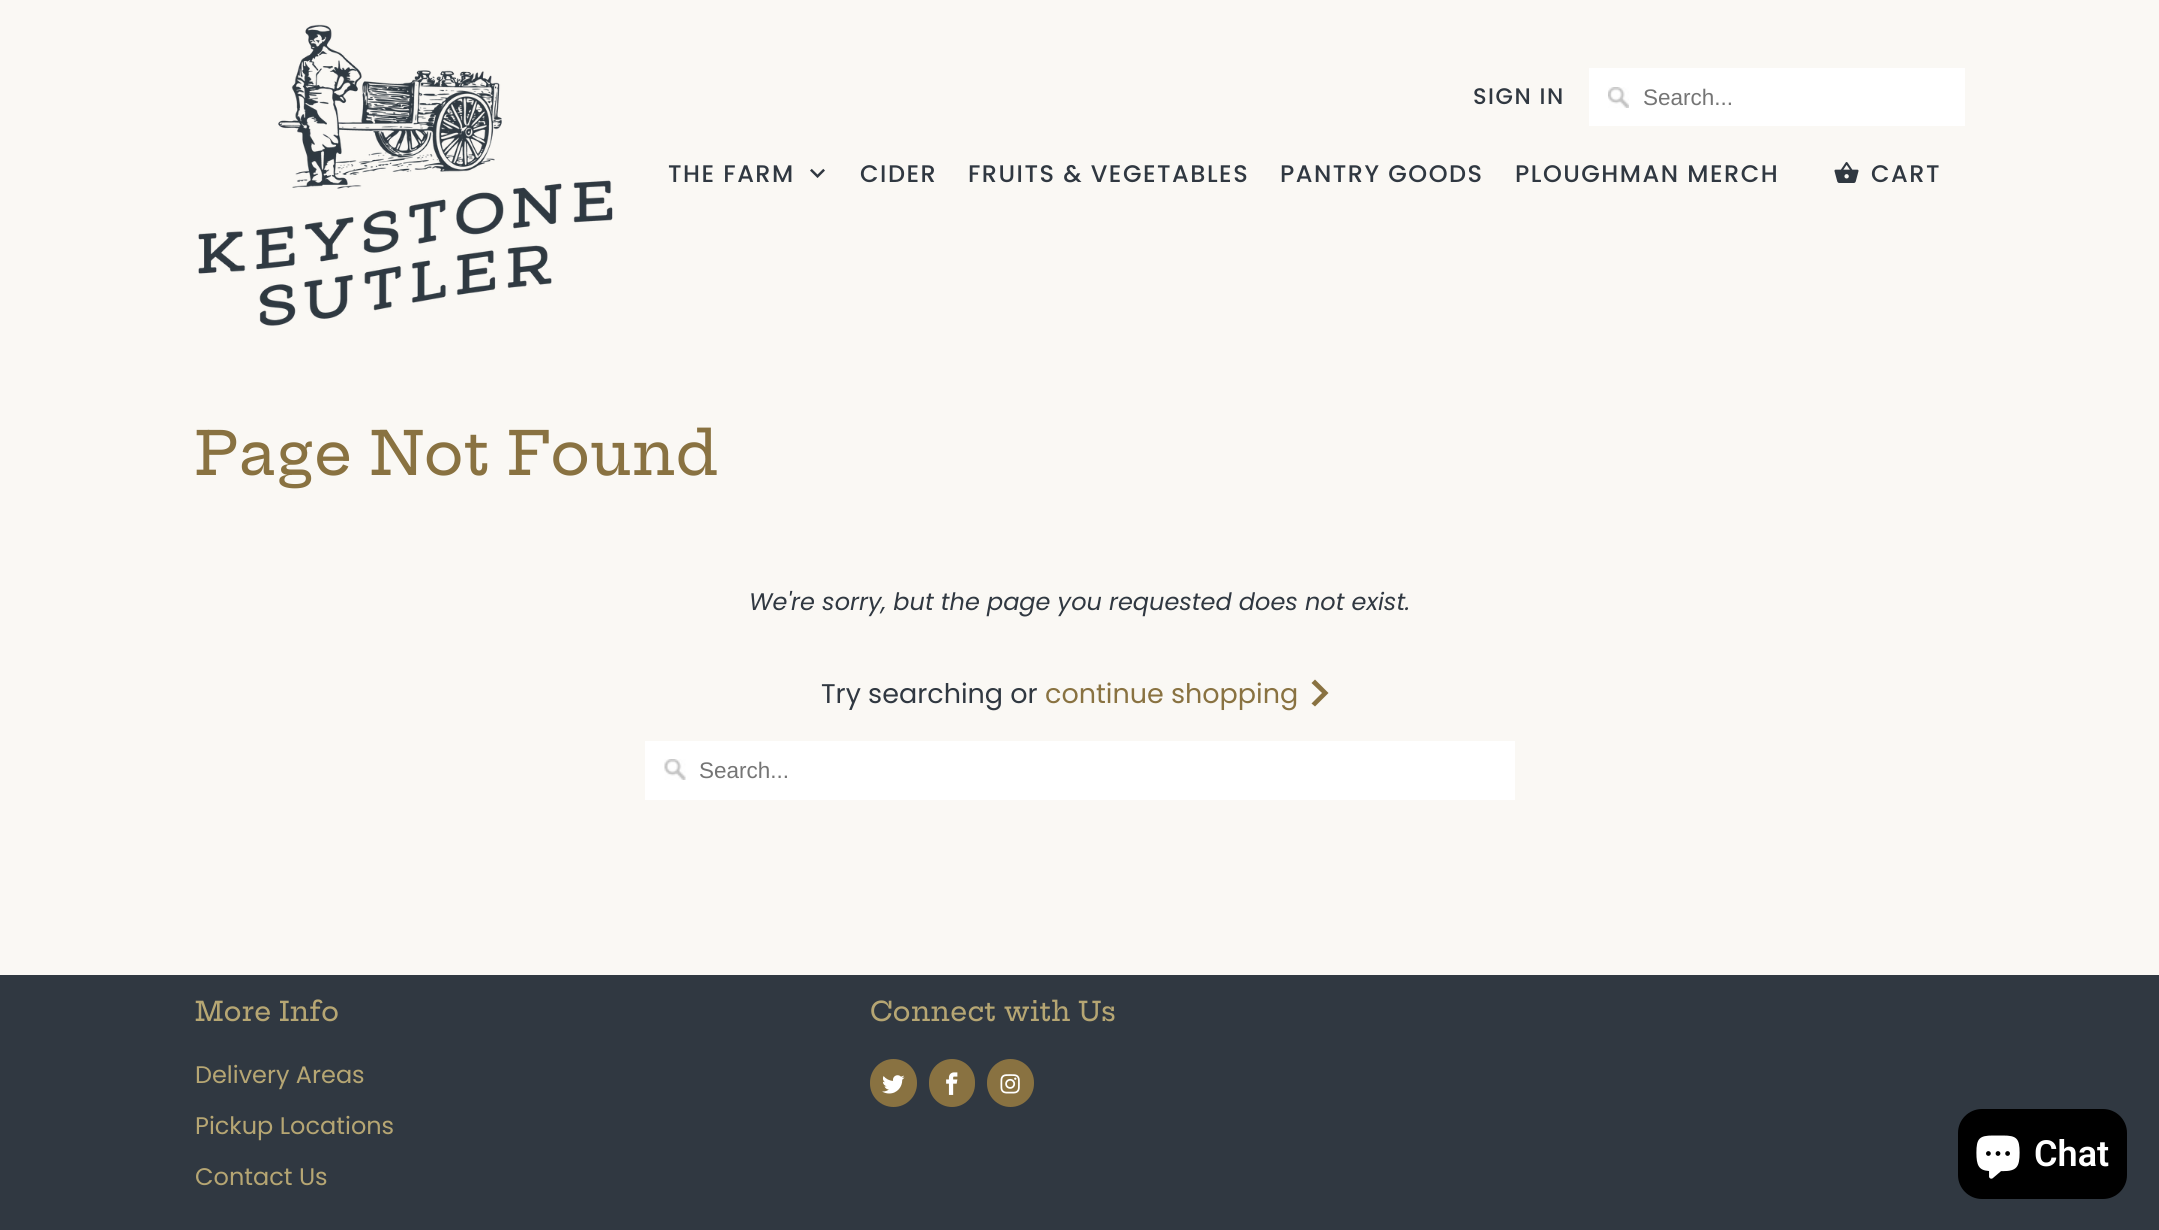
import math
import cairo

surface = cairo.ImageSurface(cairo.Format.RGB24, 2159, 1230)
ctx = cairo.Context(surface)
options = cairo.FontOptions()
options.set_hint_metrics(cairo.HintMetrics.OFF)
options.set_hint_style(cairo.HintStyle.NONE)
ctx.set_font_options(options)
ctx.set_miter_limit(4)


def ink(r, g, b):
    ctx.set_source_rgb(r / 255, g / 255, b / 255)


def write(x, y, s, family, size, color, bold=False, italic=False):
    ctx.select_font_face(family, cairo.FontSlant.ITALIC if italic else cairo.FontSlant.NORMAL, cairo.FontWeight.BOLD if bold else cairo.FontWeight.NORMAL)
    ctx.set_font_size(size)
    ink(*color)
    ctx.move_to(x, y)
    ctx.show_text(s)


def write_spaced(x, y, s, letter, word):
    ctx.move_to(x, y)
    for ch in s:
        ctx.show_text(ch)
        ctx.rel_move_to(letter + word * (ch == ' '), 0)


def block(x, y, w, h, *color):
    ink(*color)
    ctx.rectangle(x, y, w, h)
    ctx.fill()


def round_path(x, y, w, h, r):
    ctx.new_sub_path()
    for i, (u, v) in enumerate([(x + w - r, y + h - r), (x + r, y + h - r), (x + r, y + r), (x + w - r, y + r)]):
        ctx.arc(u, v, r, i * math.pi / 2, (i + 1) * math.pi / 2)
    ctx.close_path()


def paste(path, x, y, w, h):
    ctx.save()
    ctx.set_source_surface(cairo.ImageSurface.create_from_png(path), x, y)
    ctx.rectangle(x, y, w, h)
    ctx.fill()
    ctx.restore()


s1 = dict(family="Liberation Sans", size=22.5, color=(117, 117, 117))
s2 = dict(family="Hepta Slab Medium", size=60, color=(137, 114, 65))
s3 = dict(family="Poppins", size=24, color=(48, 56, 65), italic=True)
s4 = dict(family="Poppins", size=27, color=(48, 56, 65))
s5 = dict(family="Poppins", size=27, color=(137, 114, 65))
s6 = dict(family="Hepta Slab Medium", size=27, color=(182, 166, 115))
s7 = dict(family="Poppins", size=24, color=(182, 166, 115))
s8 = dict(family="Roboto SemiBold", size=36, color=(255, 255, 255))

ink(250, 248, 244)
ctx.paint()
paste("pic1.png", 198, 24, 415, 302)
ctx.select_font_face("Poppins Medium")
ctx.set_font_size(22.5)
ink(48, 56, 65)
write_spaced(1473, 104, "SIGN IN", 1.5, 0)
block(1589, 68, 376, 58, 255, 255, 255)
paste("pic2.png", 1608, 87, 21, 21)
write(1643, 105, "Search...", **s1)
ctx.select_font_face("Poppins Medium")
ctx.set_font_size(24)
ink(48, 56, 65)
write_spaced(668, 182, "THE FARM", 1.5, 0)
paste("pic3.png", 810, 168, 15, 10)
write_spaced(860, 182, "CIDER", 1.5, 0)
write_spaced(968, 182, "FRUITS & VEGETABLES", 1.5, 0)
write_spaced(1280, 182, "PANTRY GOODS", 1.5, 0)
write_spaced(1515, 182, "PLOUGHMAN MERCH", 1.5, 0)
paste("pic4.png", 1834, 162, 25, 21)
write_spaced(1871, 182, "CART", 1.5, 0)
write(195, 475, "Page Not Found", **s2)
write(749, 610, "We're sorry, but the page you requested does not exist.", **s3)
write(821, 703, "Try searching or", **s4)
write(1045, 703, "continue shopping", **s5)
ctx.new_path()
ctx.move_to(1315, 679.5)
ctx.line_to(1311.5, 683)
ctx.line_to(1322, 693)
ctx.line_to(1311.5, 703.5)
ctx.line_to(1315, 706.5)
ctx.line_to(1328.5, 693)
ctx.close_path()
ctx.fill()
block(645, 741, 870, 59, 255, 255, 255)
paste("pic5.png", 664, 759, 22, 21)
write(699, 778, "Search...", **s1)
block(0, 975, 2159, 255, 48, 56, 65)
write(195, 1021, "More Info", **s6)
write(195, 1083, "Delivery Areas", **s7)
write(195, 1134, "Pickup Locations", **s7)
write(195, 1185, "Contact Us", **s7)
write(870, 1021, "Connect with Us", **s6)
ink(137, 114, 65)
round_path(870, 1059, 47, 48, 23.5)
ctx.fill()
paste("pic6.png", 882, 1075, 23, 19)
round_path(929, 1059, 46, 48, 23)
ctx.fill()
paste("pic7.png", 946, 1072, 12, 23)
round_path(987, 1059, 47, 48, 23.5)
ctx.fill()
paste("pic8.png", 1000, 1074, 20, 20)
ink(0, 0, 0)
round_path(1958, 1109, 169, 90, 24)
ctx.fill()
paste("pic9.png", 1976, 1135, 44, 44)
write(2034, 1166, "Chat", **s8)
surface.write_to_png("screenshot.png")
